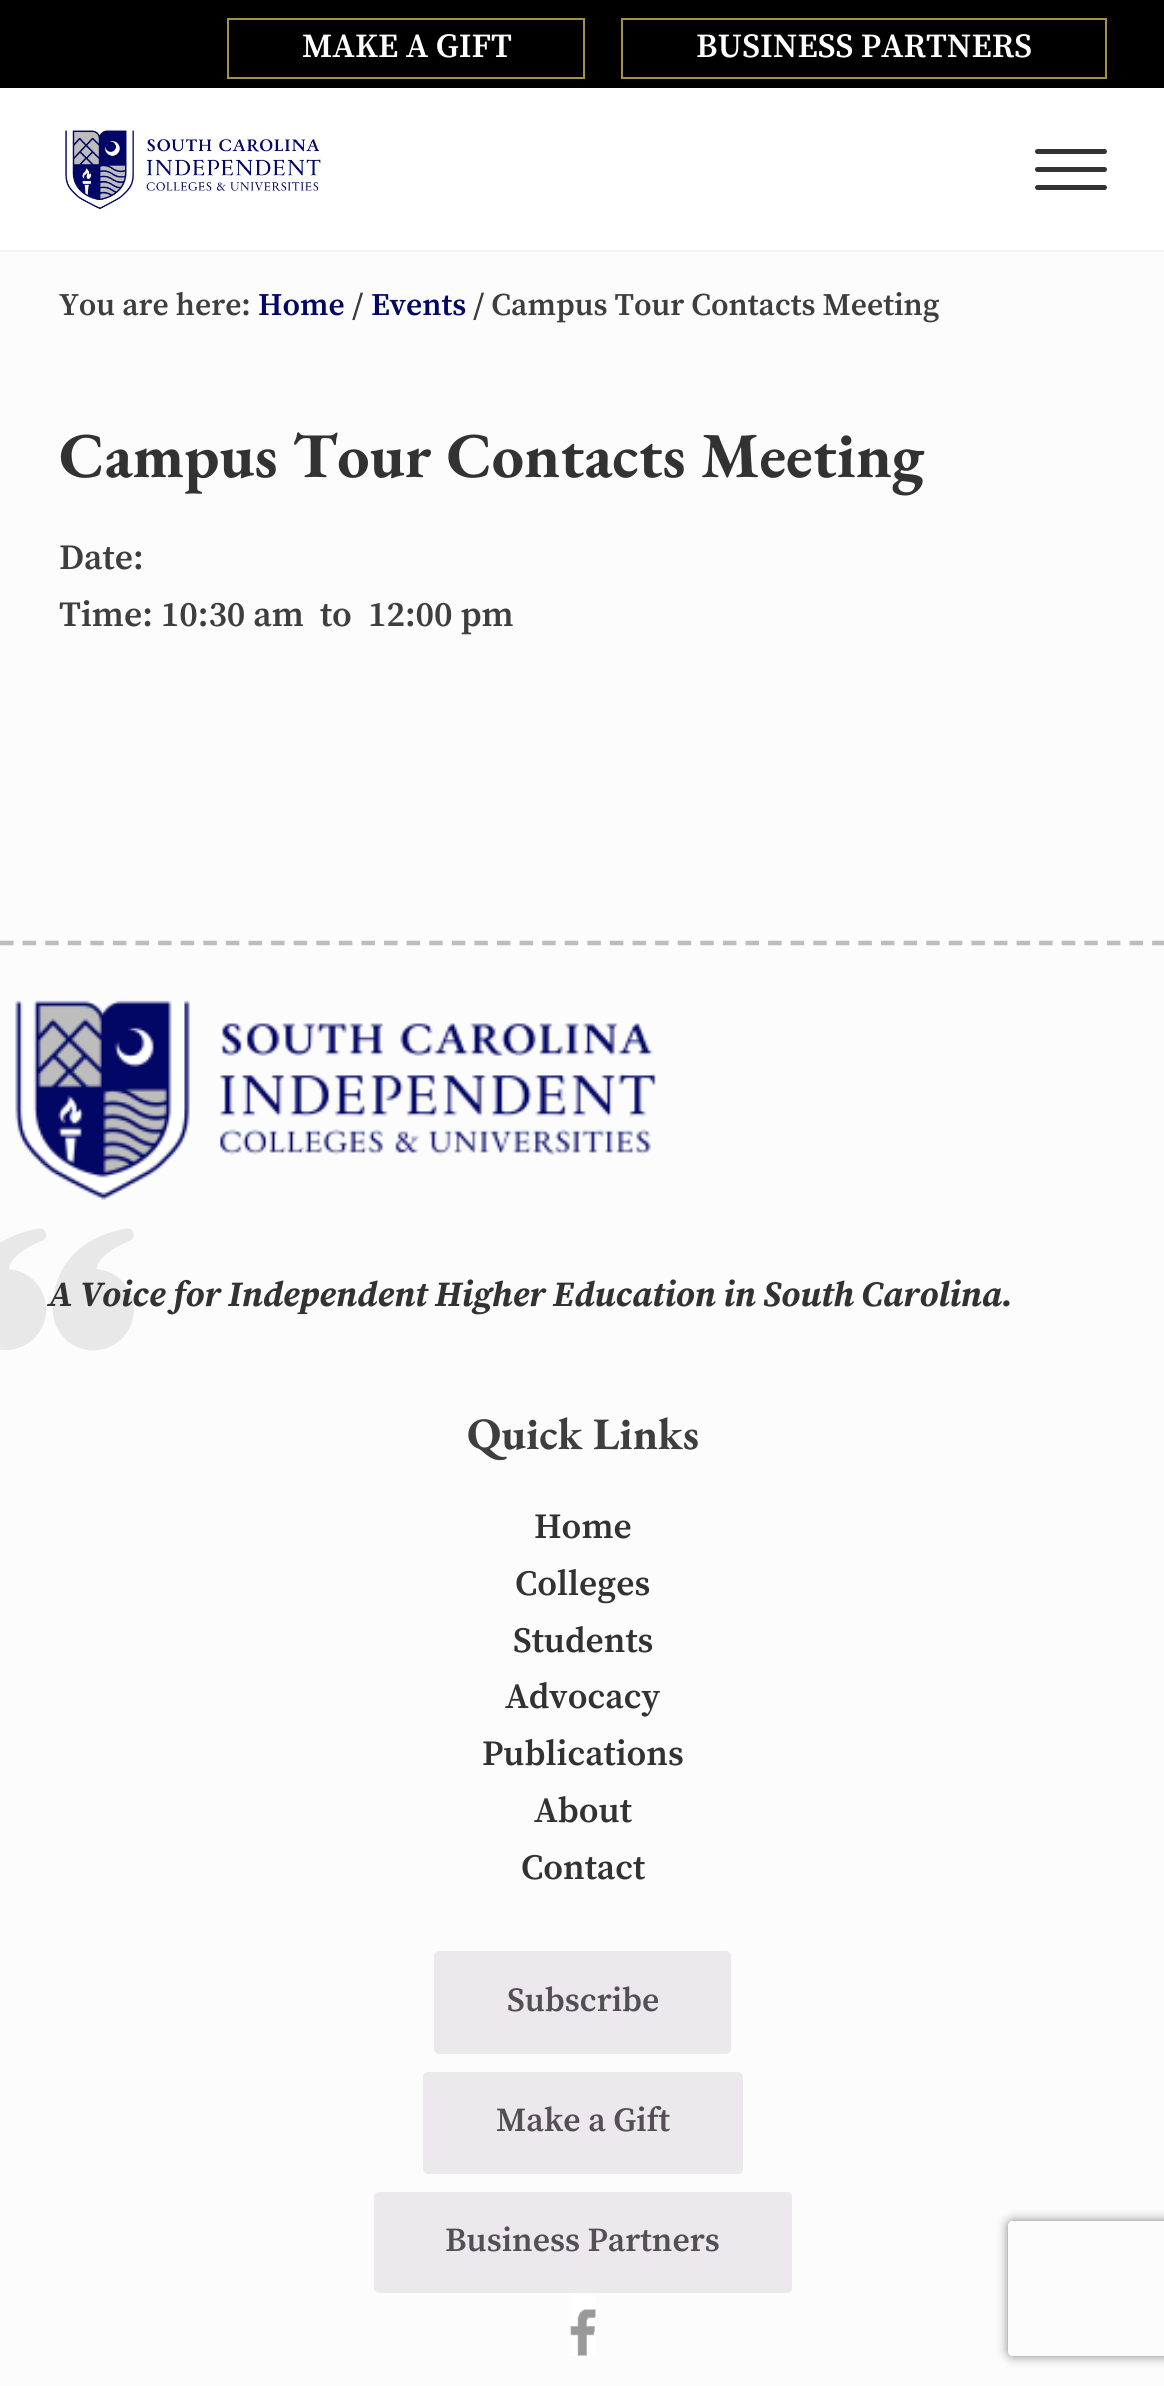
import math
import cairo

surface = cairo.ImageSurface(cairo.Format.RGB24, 1164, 2386)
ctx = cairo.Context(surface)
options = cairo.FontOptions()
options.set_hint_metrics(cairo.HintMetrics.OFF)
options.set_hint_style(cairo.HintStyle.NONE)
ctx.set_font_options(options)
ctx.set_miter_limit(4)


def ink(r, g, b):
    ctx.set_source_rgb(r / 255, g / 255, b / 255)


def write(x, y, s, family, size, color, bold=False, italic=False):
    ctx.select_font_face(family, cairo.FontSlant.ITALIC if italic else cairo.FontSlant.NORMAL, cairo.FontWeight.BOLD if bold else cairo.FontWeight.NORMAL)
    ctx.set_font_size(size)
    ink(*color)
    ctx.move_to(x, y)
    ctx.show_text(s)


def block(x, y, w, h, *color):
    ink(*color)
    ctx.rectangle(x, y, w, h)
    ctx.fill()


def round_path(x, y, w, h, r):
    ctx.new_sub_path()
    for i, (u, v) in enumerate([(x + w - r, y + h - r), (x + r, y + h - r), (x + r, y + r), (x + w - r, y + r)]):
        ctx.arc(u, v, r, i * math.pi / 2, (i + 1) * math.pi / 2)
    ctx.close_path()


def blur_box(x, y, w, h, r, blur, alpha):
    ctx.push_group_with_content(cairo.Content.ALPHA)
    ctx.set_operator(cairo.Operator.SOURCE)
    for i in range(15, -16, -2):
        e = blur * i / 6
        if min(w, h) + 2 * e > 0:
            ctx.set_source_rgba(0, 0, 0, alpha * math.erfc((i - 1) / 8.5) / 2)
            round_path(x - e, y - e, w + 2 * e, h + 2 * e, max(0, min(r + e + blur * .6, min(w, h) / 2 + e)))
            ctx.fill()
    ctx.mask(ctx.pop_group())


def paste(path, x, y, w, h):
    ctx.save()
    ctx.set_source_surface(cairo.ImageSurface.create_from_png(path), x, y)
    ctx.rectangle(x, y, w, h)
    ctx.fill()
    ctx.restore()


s1 = dict(family="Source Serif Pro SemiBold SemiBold", size=33.75, color=(255, 255, 255))
s2 = dict(family="Source Serif Pro SemiBold SemiBold", size=31.5, color=(62, 62, 62))
s3 = dict(family="Source Serif Pro SemiBold SemiBold", size=31.5, color=(2, 7, 101))
s4 = dict(family="EB Garamond", size=64, color=(50, 50, 50), bold=True)
s5 = dict(family="Source Serif Pro SemiBold SemiBold", size=35.5, color=(62, 62, 62))
s6 = dict(family="Source Serif Pro", size=35.5, color=(50, 50, 50), bold=True, italic=True)
s7 = dict(family="EB Garamond", size=45, color=(62, 62, 62), bold=True)
s8 = dict(family="Source Serif Pro SemiBold SemiBold", size=35.5, color=(50, 50, 50))
s9 = dict(family="Source Serif Pro SemiBold SemiBold", size=33.75, color=(86, 78, 86))

ink(252, 252, 252)
ctx.paint()
block(0, 0, 1164, 88, 0, 0, 0)
ctx.rectangle(228, 19, 356, 59)
ink(163, 145, 71)
ctx.stroke()
write(302, 57, "MAKE A GIFT", **s1)
ctx.rectangle(622, 19, 484, 59)
ink(163, 145, 71)
ctx.stroke()
write(696, 57, "BUSINESS PARTNERS", **s1)
block(0, 88, 1164, 162, 255, 255, 255)
block(0, 250, 1164, 2, 243, 243, 244)
paste("pic1.png", 65, 130, 256, 80)
ink(50, 50, 50)
round_path(1035, 167, 72, 5, 2.5)
ctx.fill()
round_path(1035, 149, 72, 5, 2.5)
ctx.fill()
round_path(1035, 185, 72, 5, 2.5)
ctx.fill()
write(59, 315, "You are here:", **s2)
write(258, 315, "Home", **s3)
write(352, 315, "/", **s2)
write(371, 315, "Events", **s3)
write(473, 315, "/ Campus Tour Contacts Meeting", **s2)
write(59, 477, "Campus Tour Contacts Meeting", **s4)
write(59, 569, "Date:", **s5)
write(59, 626, "Time: 10:30 am", **s5)
write(320, 626, "to", **s5)
write(368, 626, "12:00 pm", **s5)
ctx.new_path()
ctx.move_to(0, 943)
ctx.line_to(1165.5, 943)
ink(189, 189, 189)
ctx.set_line_width(4.5)
ctx.set_dash([13.5, 9.09])
ctx.stroke()
paste("pic2.png", 15, 1000, 641, 200)
paste("pic3.png", 0, 1228, 134, 123)
write(48, 1306, "A Voice for Independent Higher Education in South Carolina.", **s6)
write(467, 1449, "Quick Links", **s7)
write(534, 1538, "Home", **s8)
write(515, 1595, "Colleges", **s8)
write(513, 1652, "Students", **s8)
write(505, 1708, "Advocacy", **s8)
write(482, 1765, "Publications", **s8)
write(534, 1822, "About", **s8)
write(521, 1879, "Contact", **s8)
ink(235, 233, 235)
round_path(434, 1951, 297, 103, 5)
ctx.fill()
write(507, 2011, "Subscribe", **s9)
ink(235, 233, 235)
round_path(423, 2072, 320, 102, 5)
ctx.fill()
write(496, 2131, "Make a Gift", **s9)
ink(235, 233, 235)
round_path(374, 2192, 418, 101, 5)
ctx.fill()
write(445, 2251, "Business Partners", **s9)
paste("pic4.png", 570, 2292, 26, 64)
ctx.save()
ctx.set_fill_rule(cairo.FillRule.EVEN_ODD)
ctx.new_path()
ctx.move_to(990, 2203)
ctx.line_to(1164, 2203)
ctx.line_to(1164, 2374)
ctx.line_to(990, 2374)
ctx.close_path()
ctx.move_to(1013, 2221)
ctx.line_to(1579, 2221)
ctx.curve_to(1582, 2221, 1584, 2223, 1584, 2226)
ctx.line_to(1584, 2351)
ctx.curve_to(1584, 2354, 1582, 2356, 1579, 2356)
ctx.line_to(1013, 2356)
ctx.curve_to(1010, 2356, 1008, 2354, 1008, 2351)
ctx.line_to(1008, 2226)
ctx.curve_to(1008, 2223, 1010, 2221, 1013, 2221)
ctx.close_path()
ctx.clip()
ink(128, 128, 128)
blur_box(1008, 2221, 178, 135, 5, 5.5, 1)
ctx.restore()
surface.write_to_png("screenshot.png")
